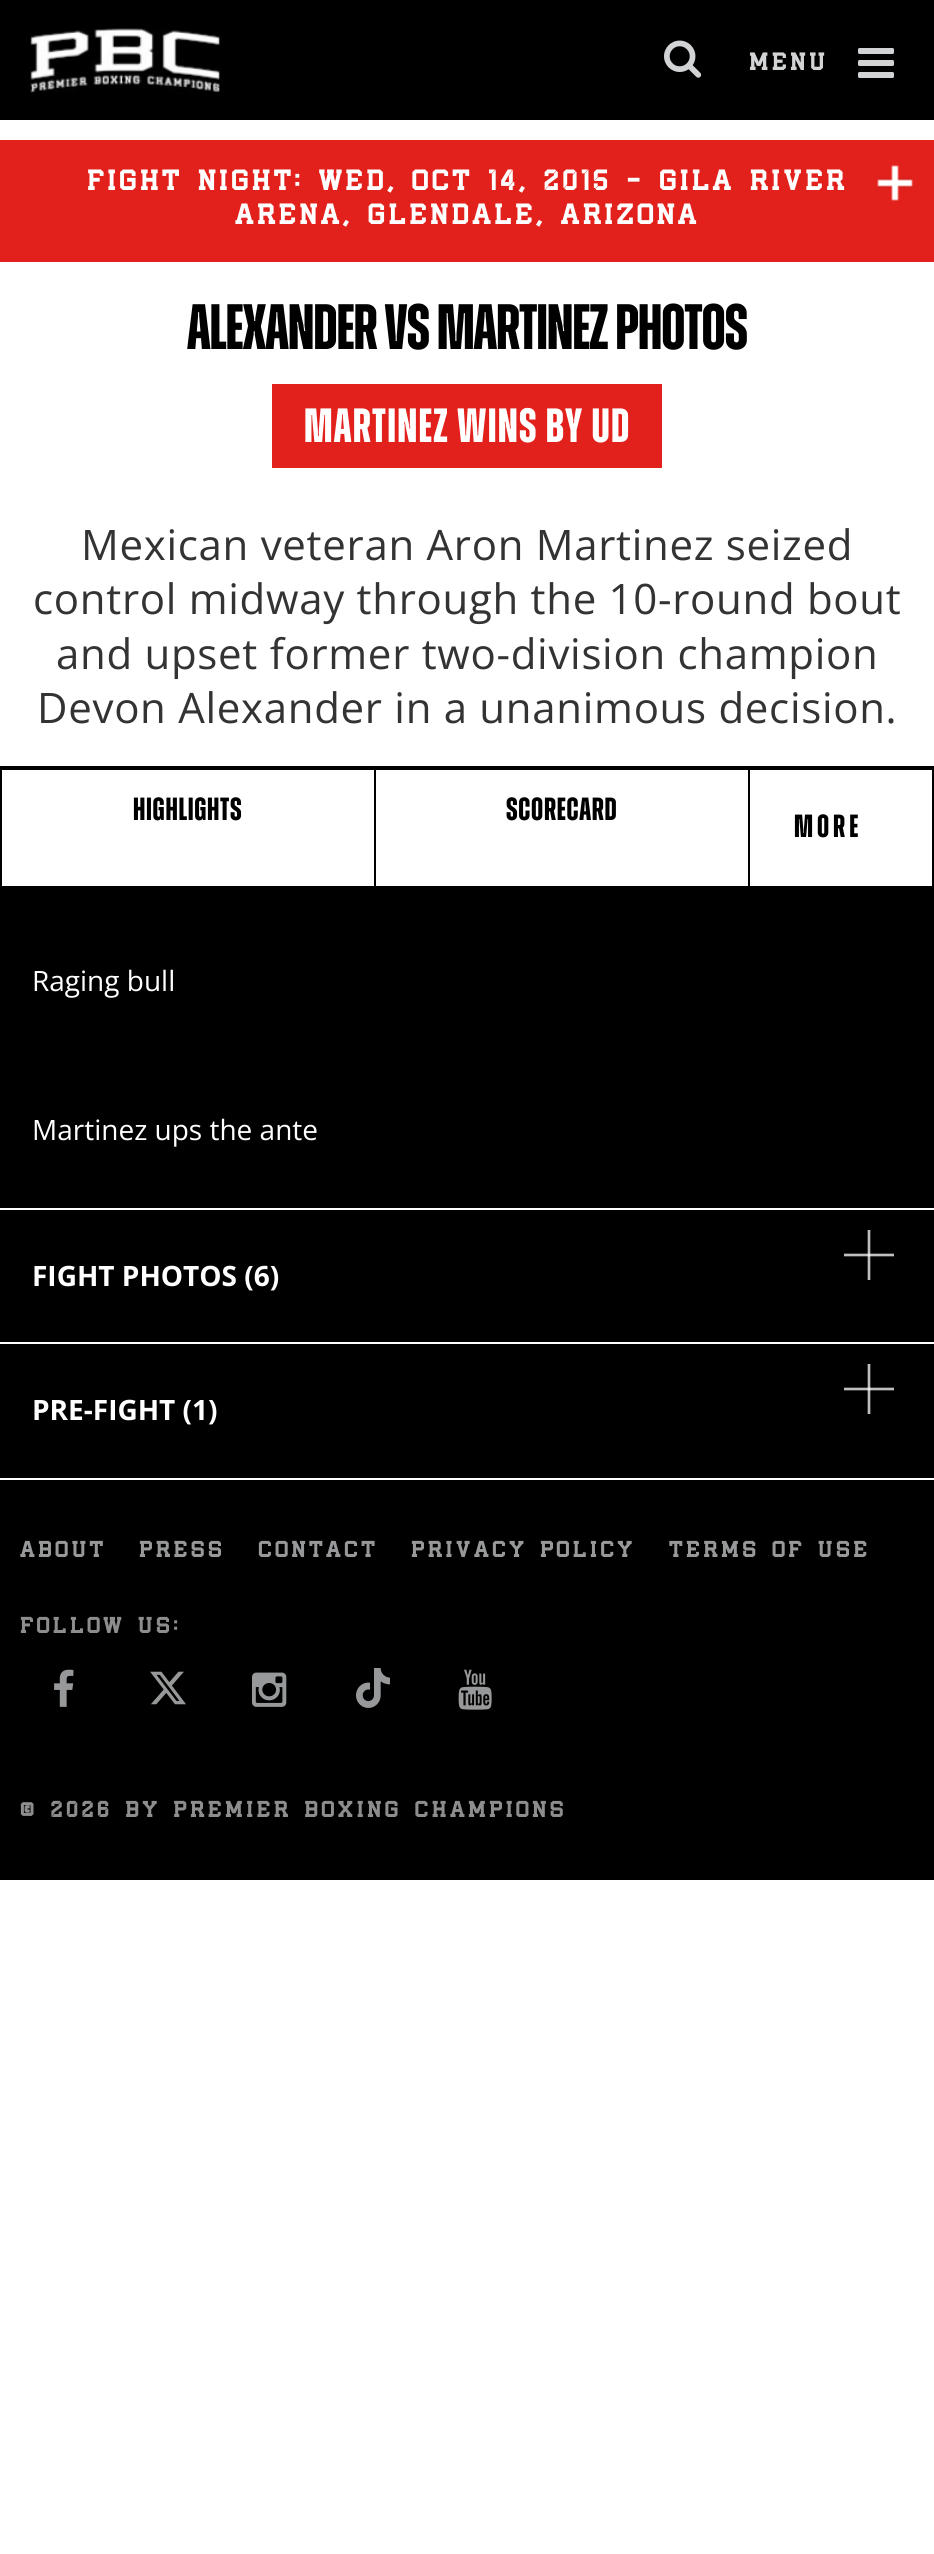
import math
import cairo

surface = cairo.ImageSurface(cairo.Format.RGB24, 934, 2554)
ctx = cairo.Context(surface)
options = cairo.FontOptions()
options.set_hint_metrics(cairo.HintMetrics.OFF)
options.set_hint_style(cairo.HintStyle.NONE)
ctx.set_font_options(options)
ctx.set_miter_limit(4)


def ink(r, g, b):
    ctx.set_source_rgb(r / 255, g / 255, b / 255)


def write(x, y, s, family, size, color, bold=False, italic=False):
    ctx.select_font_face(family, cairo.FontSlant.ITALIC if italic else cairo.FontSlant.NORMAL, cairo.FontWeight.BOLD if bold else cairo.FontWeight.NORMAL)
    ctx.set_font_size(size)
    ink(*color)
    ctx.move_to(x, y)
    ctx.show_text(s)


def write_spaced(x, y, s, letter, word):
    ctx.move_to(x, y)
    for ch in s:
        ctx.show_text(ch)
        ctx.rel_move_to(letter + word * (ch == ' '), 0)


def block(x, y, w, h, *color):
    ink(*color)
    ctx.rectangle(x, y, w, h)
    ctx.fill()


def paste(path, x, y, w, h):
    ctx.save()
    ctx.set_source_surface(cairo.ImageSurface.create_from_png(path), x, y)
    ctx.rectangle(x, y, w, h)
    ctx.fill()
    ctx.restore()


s1 = dict(family="Open Sans", size=28, color=(255, 255, 255))
s2 = dict(family="Open Sans", size=28, color=(255, 255, 255), bold=True)

ink(255, 255, 255)
ctx.paint()
block(0, 0, 934, 120, 0, 0, 0)
paste("pic1.png", 30, 28, 193, 66)
paste("pic2.png", 664, 40, 38, 38)
ctx.select_font_face("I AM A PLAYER", cairo.FontSlant.NORMAL, cairo.FontWeight.BOLD)
ctx.set_font_size(24)
ink(209, 211, 212)
write_spaced(749, 70, "MENU", 4, 0)
paste("pic3.png", 858, 48, 36, 30)
block(0, 140, 934, 122, 226, 33, 28)
ctx.set_font_size(28)
ink(255, 255, 255)
write_spaced(87, 190, "FIGHT NIGHT: WED, OCT 14, 2015 - GILA RIVER", 4, 0)
write_spaced(235, 224, "ARENA, GLENDALE, ARIZONA", 4, 0)
paste("pic4.png", 877, 165, 36, 36)
ctx.select_font_face("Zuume", cairo.FontSlant.NORMAL, cairo.FontWeight.BOLD)
ctx.set_font_size(64)
ink(0, 0, 0)
write_spaced(187, 349, "ALEXANDER VS MARTINEZ PHOTOS", -1.15, 0)
block(272, 384, 390, 84, 226, 33, 28)
ctx.set_font_size(48)
ink(255, 255, 255)
write_spaced(304, 442, "MARTINEZ WINS BY UD", 1.25, 0)
ctx.select_font_face("Open Sans")
ctx.set_font_size(42)
ink(51, 51, 51)
write_spaced(81, 560, "Mexican veteran Aron Martinez seized", 0.7, 0)
write_spaced(33, 614, "control midway through the 10-round bout", 0.7, 0)
write_spaced(56, 669, "and upset former two-division champion", 0.7, 0)
write_spaced(37, 723, "Devon Alexander in a unanimous decision.", 0.7, 0)
block(0, 766, 934, 4, 0, 0, 0)
block(0, 886, 934, 592, 0, 0, 0)
block(0, 770, 2, 116, 0, 0, 0)
ctx.select_font_face("Zuume", cairo.FontSlant.NORMAL, cairo.FontWeight.BOLD)
ctx.set_font_size(32)
write_spaced(133, 820, "HIGHLIGHTS", 0.7, 0)
block(374, 770, 2, 116, 0, 0, 0)
write_spaced(506, 820, "SCORECARD", 0.7, 0)
block(932, 770, 2, 116, 0, 0, 0)
block(748, 770, 2, 116, 0, 0, 0)
write_spaced(794, 837, "MORE", 4, 0)
block(0, 1208, 934, 2, 255, 255, 255)
write(32, 991, "Raging bull", **s1)
write(32, 1140, "Martinez ups the ante", **s1)
block(0, 1342, 934, 2, 255, 255, 255)
write(32, 1286, "FIGHT PHOTOS (6)", **s2)
paste("pic5.png", 844, 1230, 50, 50)
write(32, 1420, "PRE-FIGHT (1)", **s2)
paste("pic5.png", 844, 1364, 50, 50)
block(0, 1480, 934, 400, 0, 0, 0)
ctx.select_font_face("I AM A PLAYER", cairo.FontSlant.NORMAL, cairo.FontWeight.BOLD)
ctx.set_font_size(22)
ink(151, 152, 153)
write_spaced(20, 1557, "ABOUT", 4, 0)
write_spaced(139, 1557, "PRESS", 4, 0)
write_spaced(258, 1557, "CONTACT", 4, 0)
write_spaced(411, 1557, "PRIVACY POLICY", 4, 0)
write_spaced(669, 1557, "TERMS OF USE", 4, 0)
ink(141, 141, 141)
write_spaced(20, 1633, "FOLLOW US:", 4, 0)
paste("pic6.png", 54, 1669, 20, 38)
paste("pic7.png", 150, 1671, 36, 34)
paste("pic8.png", 252, 1672, 35, 35)
paste("pic9.png", 356, 1668, 34, 40)
paste("pic10.png", 458, 1669, 34, 41)
write_spaced(20, 1817, "© 2026 BY PREMIER BOXING CHAMPIONS", 4, 0)
surface.write_to_png("screenshot.png")
